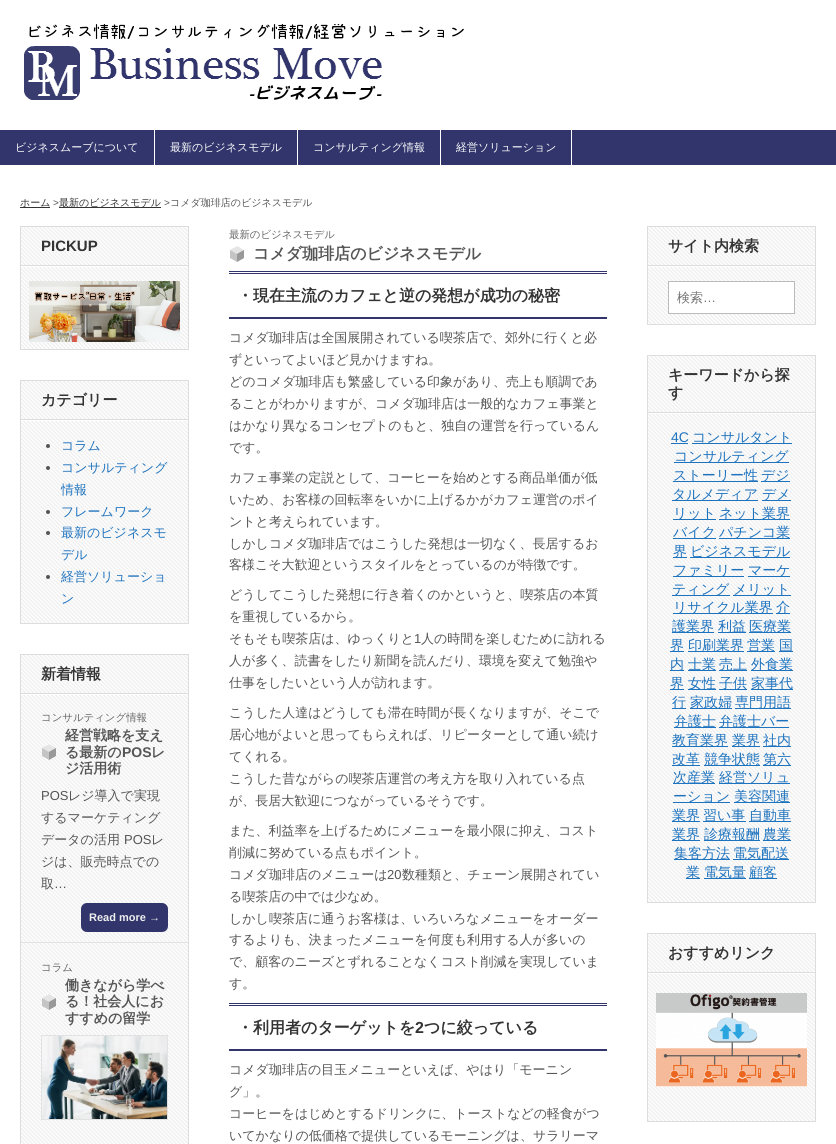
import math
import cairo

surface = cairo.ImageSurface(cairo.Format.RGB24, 836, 1144)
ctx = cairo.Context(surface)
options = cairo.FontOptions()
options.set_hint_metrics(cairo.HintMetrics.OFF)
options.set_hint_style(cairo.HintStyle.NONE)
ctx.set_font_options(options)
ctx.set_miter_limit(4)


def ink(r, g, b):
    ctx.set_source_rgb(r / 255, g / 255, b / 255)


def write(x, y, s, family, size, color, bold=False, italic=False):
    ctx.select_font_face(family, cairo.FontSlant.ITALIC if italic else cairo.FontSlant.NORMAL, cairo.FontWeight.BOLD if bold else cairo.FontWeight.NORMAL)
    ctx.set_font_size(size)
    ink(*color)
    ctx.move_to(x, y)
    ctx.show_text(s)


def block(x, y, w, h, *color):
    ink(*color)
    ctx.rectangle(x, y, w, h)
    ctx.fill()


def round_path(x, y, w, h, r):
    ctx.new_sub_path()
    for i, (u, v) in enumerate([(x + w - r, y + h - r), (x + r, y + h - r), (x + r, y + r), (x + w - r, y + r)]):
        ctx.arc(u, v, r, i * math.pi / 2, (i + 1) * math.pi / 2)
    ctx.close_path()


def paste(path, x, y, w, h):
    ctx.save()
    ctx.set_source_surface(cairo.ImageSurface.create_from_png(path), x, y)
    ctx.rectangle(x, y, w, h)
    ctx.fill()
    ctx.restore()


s1 = dict(family="WenQuanYi Zen Hei Medium", size=11, color=(255, 255, 255))
s2 = dict(family="WenQuanYi Zen Hei Medium", size=10, color=(51, 51, 51))
s3 = dict(family="Liberation Sans", size=10, color=(85, 85, 85))
s4 = dict(family="WenQuanYi Zen Hei Medium", size=10, color=(85, 85, 85))
s5 = dict(family="Liberation Sans", size=15, color=(51, 51, 51), bold=True)
s6 = dict(family="WenQuanYi Zen Hei", size=15, color=(51, 51, 51), bold=True)
s7 = dict(family="WenQuanYi Zen Hei Medium", size=13, color=(30, 115, 190))
s8 = dict(family="WenQuanYi Zen Hei Medium", size=10.4, color=(102, 102, 102))
s9 = dict(family="WenQuanYi Zen Hei", size=14, color=(85, 85, 85), bold=True)
s10 = dict(family="Liberation Sans", size=14, color=(85, 85, 85), bold=True)
s11 = dict(family="Liberation Sans", size=13, color=(85, 85, 85))
s12 = dict(family="WenQuanYi Zen Hei Medium", size=13, color=(85, 85, 85))
s13 = dict(family="Liberation Sans", size=11, color=(238, 238, 238), bold=True)
s14 = dict(family="WenQuanYi Zen Hei", size=16, color=(85, 85, 85), bold=True)
s15 = dict(family="WenQuanYi Zen Hei", size=16, color=(51, 51, 51), bold=True)
s16 = dict(family="Liberation Sans", size=16, color=(51, 51, 51), bold=True)
s17 = dict(family="WenQuanYi Zen Hei Medium", size=13, color=(117, 117, 117))
s18 = dict(family="Liberation Sans", size=13, color=(117, 117, 117))
s19 = dict(family="Liberation Sans", size=14, color=(30, 115, 190))
s20 = dict(family="WenQuanYi Zen Hei Medium", size=14, color=(30, 115, 190))

ink(255, 255, 255)
ctx.paint()
paste("pic1.png", 24, 23, 440, 77)
block(0, 130, 836, 35, 49, 53, 107)
block(154, 130, 1, 35, 255, 255, 255)
write(15, 151, "ビジネスムーブについて", **s1)
block(297, 130, 1, 35, 255, 255, 255)
write(170, 151, "最新のビジネスモデル", **s1)
block(440, 130, 1, 35, 255, 255, 255)
write(313, 151, "コンサルティング情報", **s1)
block(571, 130, 1, 35, 255, 255, 255)
write(456, 151, "経営ソリューション", **s1)
write(20, 206, "ホーム", **s2)
block(20, 207, 30, 1, 51, 51, 51)
write(53, 206, ">", **s3)
block(59, 207, 102, 1, 51, 51, 51)
write(59, 206, "最新のビジネスモデル", **s2)
write(164, 206, ">", **s3)
write(170, 206, "コメダ珈琲店のビジネスモデル", **s4)
paste("pic2.png", 21, 227, 167, 122)
ctx.rectangle(20.5, 226.5, 168, 123)
ink(221, 221, 221)
ctx.set_line_width(1)
ctx.stroke()
block(21, 266, 167, 1, 255, 255, 255)
block(21, 265, 167, 1, 221, 221, 221)
write(41, 251, "PICKUP", **s5)
paste("pic3.png", 29, 281, 151, 61)
paste("pic4.png", 21, 381, 167, 242)
ctx.rectangle(20.5, 380.5, 168, 243)
ink(221, 221, 221)
ctx.stroke()
block(21, 420, 167, 1, 255, 255, 255)
block(21, 419, 167, 1, 221, 221, 221)
write(41, 405, "カテゴリー", **s6)
ink(85, 85, 85)
ctx.new_path()
ctx.arc(48, 446, 2, 0, 2 * math.pi)
ctx.fill()
write(61, 450, "コラム", **s7)
ink(85, 85, 85)
ctx.new_path()
ctx.arc(48, 468, 2, 0, 2 * math.pi)
ctx.fill()
write(61, 472, "コンサルティング", **s7)
write(61, 494, "情報", **s7)
ink(85, 85, 85)
ctx.new_path()
ctx.arc(48, 512, 2, 0, 2 * math.pi)
ctx.fill()
write(61, 516, "フレームワーク", **s7)
ink(85, 85, 85)
ctx.new_path()
ctx.arc(48, 533, 2, 0, 2 * math.pi)
ctx.fill()
write(61, 537, "最新のビジネスモ", **s7)
write(61, 559, "デル", **s7)
ink(85, 85, 85)
ctx.new_path()
ctx.arc(48, 577, 2, 0, 2 * math.pi)
ctx.fill()
write(61, 581, "経営ソリューショ", **s7)
write(61, 603, "ン", **s7)
paste("pic5.png", 21, 655, 167, 489)
ctx.rectangle(20.5, 654.5, 168, 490)
ink(221, 221, 221)
ctx.stroke()
block(21, 694, 167, 1, 255, 255, 255)
block(21, 693, 167, 1, 221, 221, 221)
write(41, 679, "新着情報", **s6)
block(21, 942, 167, 1, 226, 226, 226)
write(41, 721, "コンサルティング情報", **s8)
paste("pic6.png", 42, 744, 14, 16)
write(65, 740, "経営戦略を支え", **s9)
write(65, 757, "る最新の", **s9)
write(122, 757, "POS", **s10)
write(151, 757, "レ", **s9)
write(65, 773, "ジ活用術", **s9)
write(41, 800, "POS", **s11)
write(68, 800, "レジ導入で実現", **s12)
write(41, 822, "するマーケティング", **s12)
write(41, 844, "データの活用", **s12)
write(124, 844, "POS", **s11)
write(151, 844, "レ", **s12)
write(41, 866, "ジは、販売時点での", **s12)
write(41, 888, "取", **s12)
write(54, 888, "…", **s11)
ctx.save()
ctx.rectangle(41, 777, 127, 155)
ctx.clip()
ink(238, 238, 238)
ctx.new_path()
ctx.move_to(83, 931)
ctx.curve_to(84, 932, 86, 933, 88, 933)
ctx.line_to(163, 933)
ctx.curve_to(166, 933, 169, 930, 169, 927)
ctx.line_to(169, 910)
ctx.curve_to(169, 908, 168, 906, 167, 905)
ctx.curve_to(168, 906, 168, 908, 168, 909)
ctx.line_to(168, 926)
ctx.curve_to(168, 929, 165, 932, 162, 932)
ctx.line_to(87, 932)
ctx.curve_to(86, 932, 84, 932, 83, 931)
ctx.close_path()
ctx.fill()
ctx.restore()
ink(49, 53, 107)
round_path(81, 903, 87, 29, 6)
ctx.fill()
write(89, 921, "Read more →", **s13)
write(41, 971, "コラム", **s8)
paste("pic7.png", 42, 994, 14, 16)
write(65, 990, "働きながら学べ", **s9)
write(65, 1006, "る！社会人にお", **s9)
write(65, 1023, "すすめの留学", **s9)
ctx.rectangle(41.5, 1035.5, 126, 84)
ink(226, 226, 226)
ctx.stroke()
paste("pic8.png", 42, 1036, 125, 83)
write(229, 238, "最新のビジネスモデル", **s8)
paste("pic9.png", 230, 246, 14, 16)
write(253, 259, "コメダ珈琲店のビジネスモデル", **s14)
block(229, 271, 378, 1, 49, 53, 107)
block(229, 273, 378, 1, 49, 53, 107)
block(229, 317, 378, 2, 49, 53, 107)
write(237, 301, "・現在主流のカフェと逆の発想が成功の秘密", **s15)
write(229, 342, "コメダ珈琲店は全国展開されている喫茶店で、郊外に行くと必", **s12)
write(229, 364, "ずといってよいほど見かけますね。", **s12)
write(229, 386, "どのコメダ珈琲店も繁盛している印象があり、売上も順調であ", **s12)
write(229, 408, "ることがわかりますが、コメダ珈琲店は一般的なカフェ事業と", **s12)
write(229, 430, "はかなり異なるコンセプトのもと、独自の運営を行っているん", **s12)
write(229, 452, "です。", **s12)
write(229, 482, "カフェ事業の定説として、コーヒーを始めとする商品単価が低", **s12)
write(229, 504, "いため、お客様の回転率をいかに上げるかがカフェ運営のポイ", **s12)
write(229, 526, "ントと考えられています。", **s12)
write(229, 548, "しかしコメダ珈琲店ではこうした発想は一切なく、長居するお", **s12)
write(229, 569, "客様こそ大歓迎というスタイルをとっているのが特徴です。", **s12)
write(229, 599, "どうしてこうした発想に行き着くのかというと、喫茶店の本質", **s12)
write(229, 621, "を重視しているから。", **s12)
write(229, 643, "そもそも喫茶店は、ゆっくりと", **s12)
write(414, 643, "1", **s11)
write(421, 643, "人の時間を楽しむために訪れる", **s12)
write(229, 665, "人が多く、読書をしたり新聞を読んだり、環境を変えて勉強や", **s12)
write(229, 687, "仕事をしたいという人が訪れます。", **s12)
write(229, 717, "こうした人達はどうしても滞在時間が長くなりますが、そこで", **s12)
write(229, 739, "居心地がよいと思ってもらえれば、リピーターとして通い続け", **s12)
write(229, 761, "てくれる。", **s12)
write(229, 783, "こうした昔ながらの喫茶店運営の考え方を取り入れている点", **s12)
write(229, 805, "が、長居大歓迎につながっているそうです。", **s12)
write(229, 835, "また、利益率を上げるためにメニューを最小限に抑え、コスト", **s12)
write(229, 857, "削減に努めている点もポイント。", **s12)
write(229, 879, "コメダ珈琲店のメニューは", **s12)
write(387, 879, "20", **s11)
write(402, 879, "数種類と、チェーン展開されてい", **s12)
write(229, 901, "る喫茶店の中では少なめ。", **s12)
write(229, 923, "しかし喫茶店に通うお客様は、いろいろなメニューをオーダー", **s12)
write(229, 944, "するよりも、決まったメニューを何度も利用する人が多いの", **s12)
write(229, 966, "で、顧客のニーズとずれることなくコスト削減を実現していま", **s12)
write(229, 988, "す。", **s12)
block(229, 1003, 378, 1, 49, 53, 107)
block(229, 1005, 378, 1, 49, 53, 107)
block(229, 1049, 378, 2, 49, 53, 107)
write(237, 1033, "・利用者のターゲットを", **s15)
write(415, 1033, "2", **s16)
write(424, 1033, "つに絞っている", **s15)
write(229, 1074, "コメダ珈琲店の目玉メニューといえば、やはり「モーニン", **s12)
write(229, 1096, "グ」。", **s12)
write(229, 1118, "コーヒーをはじめとするドリンクに、トーストなどの軽食がつ", **s12)
write(229, 1140, "いてかなりの低価格で提供しているモーニングは、サラリーマ", **s12)
paste("pic10.png", 648, 227, 167, 97)
ctx.rectangle(647.5, 226.5, 168, 98)
ink(221, 221, 221)
ctx.stroke()
block(648, 266, 167, 1, 255, 255, 255)
block(648, 265, 167, 1, 221, 221, 221)
write(668, 251, "サイト内検索", **s6)
ink(255, 255, 255)
ctx.rectangle(668.5, 281.5, 126, 32)
ctx.fill_preserve()
ink(187, 187, 187)
ctx.stroke()
write(677, 302, "検索", **s17)
write(703, 302, "…", **s18)
paste("pic11.png", 648, 356, 167, 546)
ctx.rectangle(647.5, 355.5, 168, 547)
ink(221, 221, 221)
ctx.stroke()
block(648, 413, 167, 1, 255, 255, 255)
block(648, 412, 167, 1, 221, 221, 221)
write(668, 380, "キーワードから探", **s6)
write(668, 398, "す", **s6)
write(671, 442, "4C", **s19)
block(671, 443, 17, 1, 30, 115, 190)
block(692, 443, 100, 1, 30, 115, 190)
write(692, 442, "コンサルタント", **s20)
block(674, 462, 115, 1, 30, 115, 190)
write(674, 461, "コンサルティング", **s20)
block(673, 481, 85, 1, 30, 115, 190)
write(673, 480, "ストーリー性", **s20)
block(761, 481, 29, 1, 30, 115, 190)
write(761, 480, "デジ", **s20)
block(672, 500, 86, 1, 30, 115, 190)
write(672, 499, "タルメディア", **s20)
block(762, 500, 29, 1, 30, 115, 190)
write(762, 499, "デメ", **s20)
block(673, 519, 43, 1, 30, 115, 190)
write(673, 518, "リット", **s20)
block(719, 519, 71, 1, 30, 115, 190)
write(719, 518, "ネット業界", **s20)
block(673, 538, 43, 1, 30, 115, 190)
write(673, 537, "バイク", **s20)
block(719, 538, 71, 1, 30, 115, 190)
write(719, 537, "パチンコ業", **s20)
block(673, 557, 14, 1, 30, 115, 190)
write(673, 556, "界", **s20)
block(690, 557, 100, 1, 30, 115, 190)
write(690, 556, "ビジネスモデル", **s20)
block(673, 576, 71, 1, 30, 115, 190)
write(673, 575, "ファミリー", **s20)
block(748, 576, 42, 1, 30, 115, 190)
write(748, 575, "マーケ", **s20)
block(672, 595, 58, 1, 30, 115, 190)
write(672, 594, "ティング", **s20)
block(733, 595, 58, 1, 30, 115, 190)
write(733, 594, "メリット", **s20)
block(673, 613, 100, 1, 30, 115, 190)
write(673, 612, "リサイクル業界", **s20)
block(776, 613, 14, 1, 30, 115, 190)
write(776, 612, "介", **s20)
block(672, 632, 42, 1, 30, 115, 190)
write(672, 631, "護業界", **s20)
block(718, 632, 28, 1, 30, 115, 190)
write(718, 631, "利益", **s20)
block(749, 632, 42, 1, 30, 115, 190)
write(749, 631, "医療業", **s20)
block(670, 651, 14, 1, 30, 115, 190)
write(670, 650, "界", **s20)
block(688, 651, 56, 1, 30, 115, 190)
write(688, 650, "印刷業界", **s20)
block(747, 651, 28, 1, 30, 115, 190)
write(747, 650, "営業", **s20)
block(779, 651, 14, 1, 30, 115, 190)
write(779, 650, "国", **s20)
block(670, 670, 14, 1, 30, 115, 190)
write(670, 669, "内", **s20)
block(688, 670, 28, 1, 30, 115, 190)
write(688, 669, "士業", **s20)
block(719, 670, 28, 1, 30, 115, 190)
write(719, 669, "売上", **s20)
block(751, 670, 42, 1, 30, 115, 190)
write(751, 669, "外食業", **s20)
block(670, 689, 14, 1, 30, 115, 190)
write(670, 688, "界", **s20)
block(688, 689, 28, 1, 30, 115, 190)
write(688, 688, "女性", **s20)
block(719, 689, 28, 1, 30, 115, 190)
write(719, 688, "子供", **s20)
block(751, 689, 42, 1, 30, 115, 190)
write(751, 688, "家事代", **s20)
block(672, 708, 14, 1, 30, 115, 190)
write(672, 707, "行", **s20)
block(690, 708, 42, 1, 30, 115, 190)
write(690, 707, "家政婦", **s20)
block(735, 708, 56, 1, 30, 115, 190)
write(735, 707, "専門用語", **s20)
block(674, 727, 42, 1, 30, 115, 190)
write(674, 726, "弁護士", **s20)
block(719, 727, 70, 1, 30, 115, 190)
write(719, 726, "弁護士バー", **s20)
block(672, 746, 56, 1, 30, 115, 190)
write(672, 745, "教育業界", **s20)
block(732, 746, 28, 1, 30, 115, 190)
write(732, 745, "業界", **s20)
block(763, 746, 28, 1, 30, 115, 190)
write(763, 745, "社内", **s20)
block(672, 765, 28, 1, 30, 115, 190)
write(672, 764, "改革", **s20)
block(704, 765, 56, 1, 30, 115, 190)
write(704, 764, "競争状態", **s20)
block(763, 765, 28, 1, 30, 115, 190)
write(763, 764, "第六", **s20)
block(673, 783, 42, 1, 30, 115, 190)
write(673, 782, "次産業", **s20)
block(719, 783, 71, 1, 30, 115, 190)
write(719, 782, "経営ソリュ", **s20)
block(673, 802, 57, 1, 30, 115, 190)
write(673, 801, "ーション", **s20)
block(734, 802, 56, 1, 30, 115, 190)
write(734, 801, "美容関連", **s20)
block(672, 821, 28, 1, 30, 115, 190)
write(672, 820, "業界", **s20)
block(703, 821, 43, 1, 30, 115, 190)
write(703, 820, "習い事", **s20)
block(749, 821, 42, 1, 30, 115, 190)
write(749, 820, "自動車", **s20)
block(672, 840, 28, 1, 30, 115, 190)
write(672, 839, "業界", **s20)
block(704, 840, 56, 1, 30, 115, 190)
write(704, 839, "診療報酬", **s20)
block(763, 840, 28, 1, 30, 115, 190)
write(763, 839, "農業", **s20)
block(674, 859, 56, 1, 30, 115, 190)
write(674, 858, "集客方法", **s20)
block(733, 859, 56, 1, 30, 115, 190)
write(733, 858, "電気配送", **s20)
block(686, 878, 14, 1, 30, 115, 190)
write(686, 877, "業", **s20)
block(704, 878, 42, 1, 30, 115, 190)
write(704, 877, "電気量", **s20)
block(749, 878, 28, 1, 30, 115, 190)
write(749, 877, "顧客", **s20)
paste("pic12.png", 648, 934, 167, 187)
ctx.rectangle(647.5, 933.5, 168, 188)
ink(221, 221, 221)
ctx.stroke()
block(648, 973, 167, 1, 255, 255, 255)
block(648, 972, 167, 1, 221, 221, 221)
write(668, 958, "おすすめリンク", **s6)
paste("pic13.png", 656, 993, 151, 94)
surface.write_to_png("screenshot.png")
